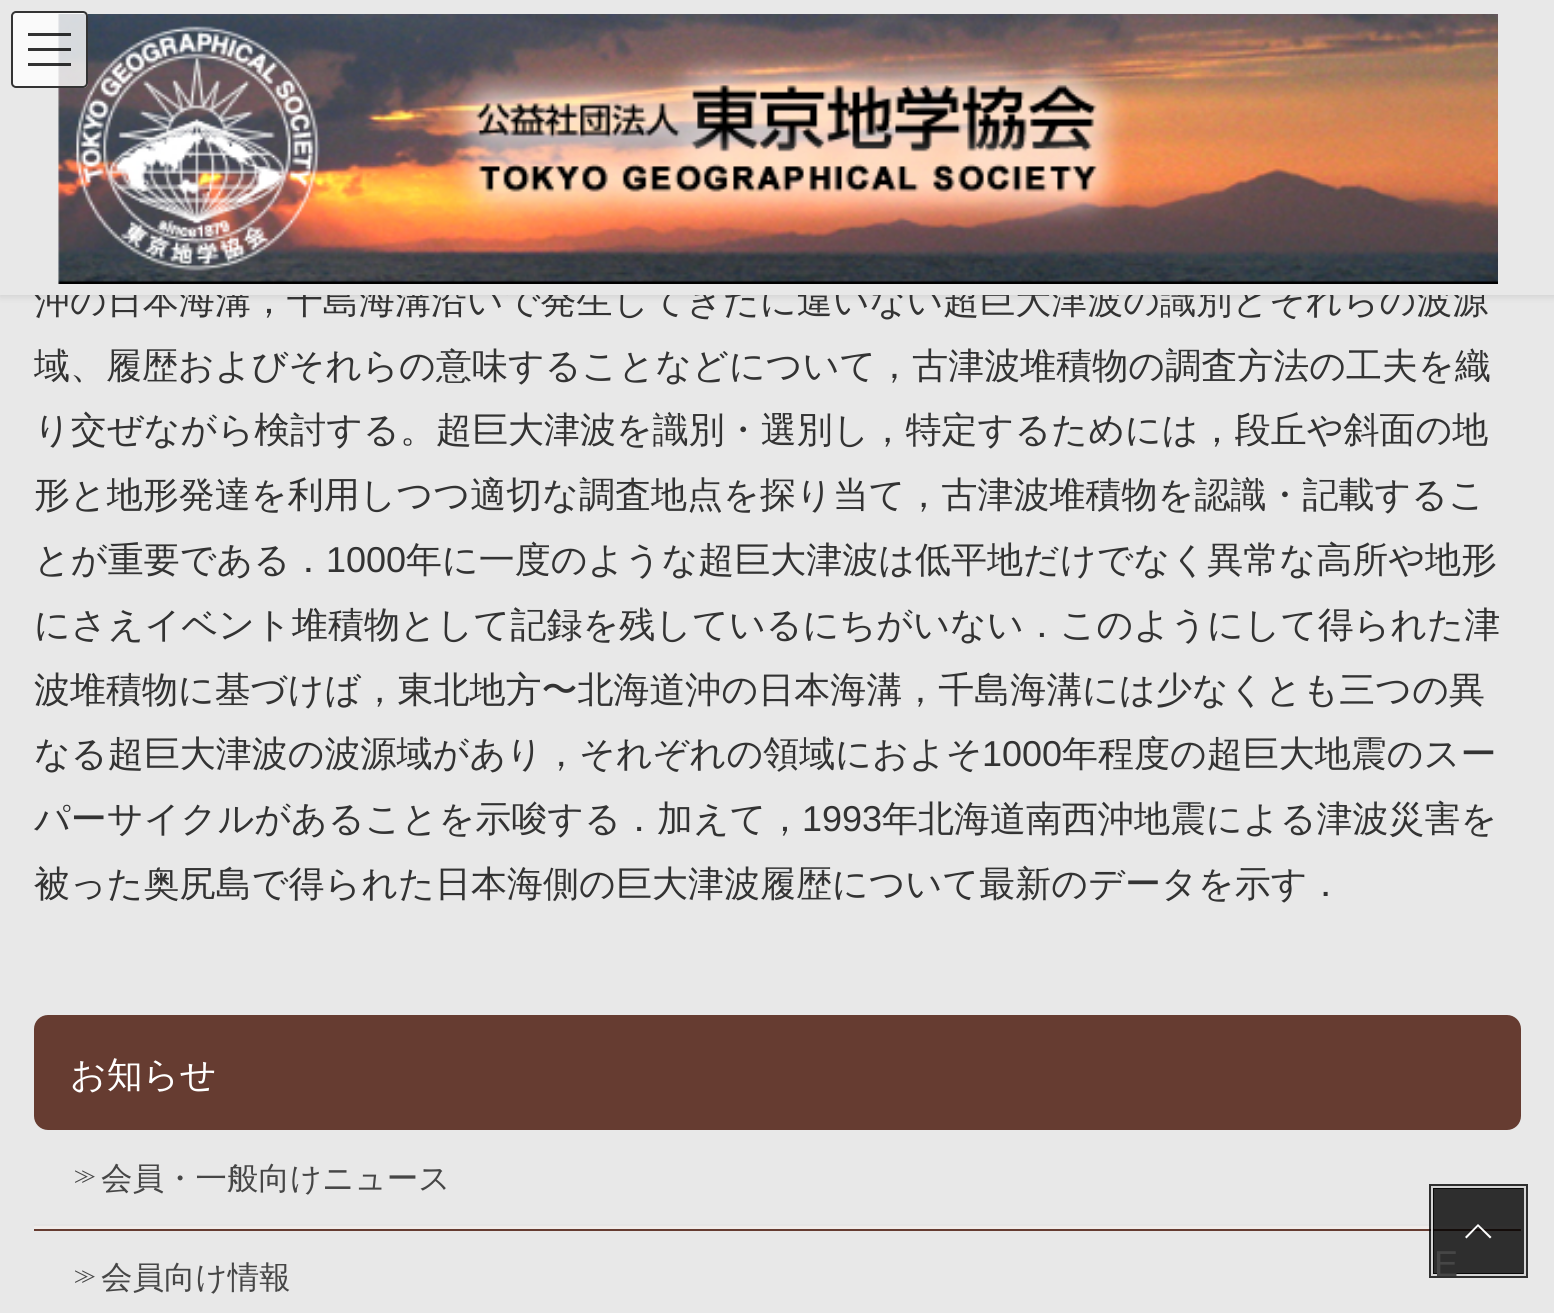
import math
import cairo

surface = cairo.ImageSurface(cairo.Format.RGB24, 1554, 1313)
ctx = cairo.Context(surface)
options = cairo.FontOptions()
options.set_hint_metrics(cairo.HintMetrics.OFF)
options.set_hint_style(cairo.HintStyle.NONE)
ctx.set_font_options(options)
ctx.set_miter_limit(4)


def ink(r, g, b):
    ctx.set_source_rgb(r / 255, g / 255, b / 255)


def write(x, y, s, family, size, color, bold=False, italic=False):
    ctx.select_font_face(family, cairo.FontSlant.ITALIC if italic else cairo.FontSlant.NORMAL, cairo.FontWeight.BOLD if bold else cairo.FontWeight.NORMAL)
    ctx.set_font_size(size)
    ink(*color)
    ctx.move_to(x, y)
    ctx.show_text(s)


def block(x, y, w, h, *color):
    ink(*color)
    ctx.rectangle(x, y, w, h)
    ctx.fill()


def round_path(x, y, w, h, r):
    ctx.new_sub_path()
    for i, (u, v) in enumerate([(x + w - r, y + h - r), (x + r, y + h - r), (x + r, y + r), (x + w - r, y + r)]):
        ctx.arc(u, v, r, i * math.pi / 2, (i + 1) * math.pi / 2)
    ctx.close_path()


def blur_box(x, y, w, h, r, blur, alpha):
    ctx.push_group_with_content(cairo.Content.ALPHA)
    ctx.set_operator(cairo.Operator.SOURCE)
    for i in range(15, -16, -2):
        e = blur * i / 6
        if min(w, h) + 2 * e > 0:
            ctx.set_source_rgba(0, 0, 0, alpha * math.erfc((i - 1) / 8.5) / 2)
            round_path(x - e, y - e, w + 2 * e, h + 2 * e, max(0, min(r + e + blur * .6, min(w, h) / 2 + e)))
            ctx.fill()
    ctx.mask(ctx.pop_group())


def paste(path, x, y, w, h):
    ctx.save()
    ctx.set_source_surface(cairo.ImageSurface.create_from_png(path), x, y)
    ctx.rectangle(x, y, w, h)
    ctx.fill()
    ctx.restore()


s1 = dict(family="WenQuanYi Zen Hei Medium", size=36, color=(51, 51, 51))
s2 = dict(family="Liberation Sans", size=36, color=(51, 51, 51))
s3 = dict(family="WenQuanYi Zen Hei Medium", size=36, color=(255, 255, 255))
s4 = dict(family="WenQuanYi Zen Hei Medium", size=22, color=(70, 70, 70))
s5 = dict(family="WenQuanYi Zen Hei Medium", size=31.5, color=(70, 70, 70))
s6 = dict(family="Liberation Sans", size=36, color=(70, 70, 70))

ink(232, 232, 232)
ctx.paint()
ink(0, 0, 0)
blur_box(0, 2, 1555, 295, 0, 3.5, 0.1)
write(34, 313, "沖の日本海溝，千島海溝沿いで発生してきたに違いない超巨大津波の識別とそれらの波源", **s1)
block(0, 0, 1554, 295, 232, 232, 232)
paste("pic1.png", 58, 14, 1440, 270)
ctx.set_source_rgba(1, 1, 1, 0.8)
round_path(11, 11, 77, 77, 5)
ctx.fill()
ctx.set_source_rgba(0, 0, 0, 0.8)
ctx.rectangle(28, 33, 43, 3)
ctx.fill()
ctx.rectangle(28, 48, 43, 3)
ctx.fill()
ctx.rectangle(28, 63, 43, 3)
ctx.fill()
round_path(12, 12, 75, 75, 4)
ink(51, 51, 51)
ctx.stroke()
write(34, 378, "域、履歴およびそれらの意味することなどについて，古津波堆積物の調査方法の工夫を織", **s1)
write(34, 442, "り交ぜながら検討する。超巨大津波を識別・選別し，特定するためには，段丘や斜面の地", **s1)
write(34, 507, "形と地形発達を利用しつつ適切な調査地点を探り当て，古津波堆積物を認識・記載するこ", **s1)
write(34, 572, "とが重要である．", **s1)
write(326, 572, "1000", **s2)
write(406, 572, "年に一度のような超巨大津波は低平地だけでなく異常な高所や地形", **s1)
write(34, 637, "にさえイベント堆積物として記録を残しているにちがいない．このようにして得られた津", **s1)
write(34, 702, "波堆積物に基づけば，東北地方〜北海道沖の日本海溝，千島海溝には少なくとも三つの異", **s1)
write(34, 766, "なる超巨大津波の波源域があり，それぞれの領域におよそ", **s1)
write(982, 766, "1000", **s2)
write(1062, 766, "年程度の超巨大地震のスー", **s1)
write(34, 831, "パーサイクルがあることを示唆する．加えて，", **s1)
write(802, 831, "1993", **s2)
write(882, 831, "年北海道南西沖地震による津波災害を", **s1)
write(34, 896, "被った奥尻島で得られた日本海側の巨大津波履歴について最新のデータを示す．", **s1)
ink(102, 60, 49)
round_path(34, 1015, 1487, 115, 14)
ctx.fill()
write(70, 1087, "お知らせ", **s3)
block(34, 1229, 1487, 2, 102, 60, 49)
block(34, 1226, 1487, 3, 240, 236, 234)
block(34, 1224, 1487, 2, 229, 229, 229)
write(74, 1183, "≫", **s4)
write(101, 1189, "会員・一般向けニュース", **s5)
write(74, 1283, "≫", **s4)
write(101, 1288, "会員向け情報", **s5)
ctx.rectangle(1431.5, 1186.5, 94, 89)
ctx.set_source_rgba(0, 0, 0, 0.8)
ctx.set_line_width(5)
ctx.stroke()
ctx.rectangle(1432, 1187, 93, 88)
ctx.set_source_rgba(1, 1, 1, 0.8)
ctx.set_line_width(2)
ctx.stroke()
ctx.set_source_rgba(0, 0, 0, 0.8)
ctx.rectangle(1433, 1188, 90, 86)
ctx.fill()
ink(255, 255, 255)
ctx.new_path()
ctx.move_to(1491.5, 1237)
ctx.line_to(1490, 1238.5)
ctx.line_to(1478, 1226.5)
ctx.line_to(1466.5, 1238.5)
ctx.line_to(1465, 1237)
ctx.line_to(1478, 1224)
ctx.close_path()
ctx.fill()
write(1434, 1276, "E", **s6)
surface.write_to_png("screenshot.png")
